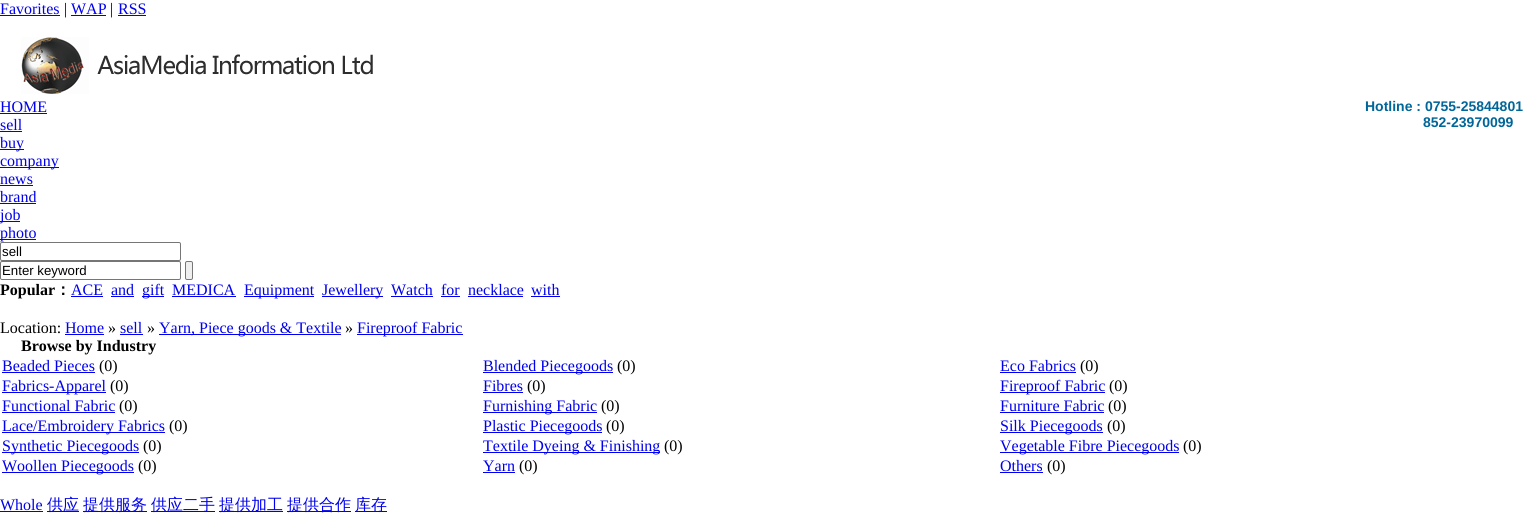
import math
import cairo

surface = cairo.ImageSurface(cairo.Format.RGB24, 1523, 528)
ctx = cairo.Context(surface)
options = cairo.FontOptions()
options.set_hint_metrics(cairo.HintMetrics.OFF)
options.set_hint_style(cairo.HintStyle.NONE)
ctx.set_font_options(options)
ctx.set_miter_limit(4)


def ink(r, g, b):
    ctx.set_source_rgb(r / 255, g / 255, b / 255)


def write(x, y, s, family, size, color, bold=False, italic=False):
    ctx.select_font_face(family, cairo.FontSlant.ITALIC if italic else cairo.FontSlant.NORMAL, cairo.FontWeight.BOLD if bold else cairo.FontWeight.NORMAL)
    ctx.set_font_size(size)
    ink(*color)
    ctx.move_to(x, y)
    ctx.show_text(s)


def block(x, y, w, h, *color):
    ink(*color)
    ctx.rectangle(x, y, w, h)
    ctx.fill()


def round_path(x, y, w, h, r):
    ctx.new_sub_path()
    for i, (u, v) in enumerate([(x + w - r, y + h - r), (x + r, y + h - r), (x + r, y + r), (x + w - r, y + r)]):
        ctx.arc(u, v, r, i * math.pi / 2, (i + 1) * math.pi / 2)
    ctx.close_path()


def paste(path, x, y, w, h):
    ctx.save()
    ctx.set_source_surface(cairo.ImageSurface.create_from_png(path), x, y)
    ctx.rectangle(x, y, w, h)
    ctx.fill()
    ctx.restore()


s1 = dict(family="Liberation Serif", size=16, color=(0, 0, 238))
s2 = dict(family="Liberation Serif", size=16, color=(0, 0, 0))
s3 = dict(family="Liberation Sans", size=13.25, color=(0, 0, 0))
s4 = dict(family="Liberation Serif", size=16, color=(0, 0, 0), bold=True)
s5 = dict(family="WenQuanYi Zen Hei", size=16, color=(0, 0, 0), bold=True)
s6 = dict(family="Liberation Sans", size=14, color=(0, 102, 153), bold=True)
s7 = dict(family="WenQuanYi Zen Hei Medium", size=16, color=(0, 0, 238))

ink(255, 255, 255)
ctx.paint()
write(0, 14, "Favorites", **s1)
block(0, 15, 60, 1, 0, 0, 238)
write(64, 14, "|", **s2)
write(71, 14, "WAP", **s1)
block(71, 15, 35, 1, 0, 0, 238)
write(110, 14, "|", **s2)
write(118, 14, "RSS", **s1)
block(118, 15, 28, 1, 0, 0, 238)
write(0, 112, "HOME", **s1)
block(0, 113, 47, 1, 0, 0, 238)
write(0, 130, "sell", **s1)
block(0, 131, 22, 1, 0, 0, 238)
block(0, 149, 24, 1, 0, 0, 238)
write(0, 148, "buy", **s1)
block(0, 167, 59, 1, 0, 0, 238)
write(0, 166, "company", **s1)
write(0, 184, "news", **s1)
block(0, 185, 33, 1, 0, 0, 238)
write(0, 202, "brand", **s1)
block(0, 203, 36, 1, 0, 0, 238)
block(0, 221, 20, 1, 0, 0, 238)
write(0, 220, "job", **s1)
block(0, 239, 36, 1, 0, 0, 238)
write(0, 238, "photo", **s1)
round_path(0.5, 242.5, 180, 18, 1.5)
ink(118, 118, 118)
ctx.set_line_width(1)
ctx.stroke()
write(2, 256, "sell", **s3)
round_path(0.5, 261.5, 180, 18, 1.5)
ink(118, 118, 118)
ctx.stroke()
write(2, 275, "Enter keyword", **s3)
ink(239, 239, 239)
round_path(185.5, 261.5, 7, 18, 1.5)
ctx.fill_preserve()
ink(118, 118, 118)
ctx.stroke()
write(0, 295, "Popular", **s4)
write(55, 295, "：", **s5)
write(71, 295, "ACE", **s1)
block(71, 296, 32, 1, 0, 0, 238)
write(111, 295, "and", **s1)
block(111, 296, 23, 1, 0, 0, 238)
block(142, 296, 22, 1, 0, 0, 238)
write(142, 295, "gift", **s1)
write(172, 295, "MEDICA", **s1)
block(172, 296, 64, 1, 0, 0, 238)
block(244, 296, 70, 1, 0, 0, 238)
write(244, 295, "Equipment", **s1)
block(322, 296, 61, 1, 0, 0, 238)
write(322, 295, "Jewellery", **s1)
write(391, 295, "Watch", **s1)
block(391, 296, 42, 1, 0, 0, 238)
write(441, 295, "for", **s1)
block(441, 296, 19, 1, 0, 0, 238)
write(468, 295, "necklace", **s1)
block(468, 296, 55, 1, 0, 0, 238)
write(531, 295, "with", **s1)
block(531, 296, 29, 1, 0, 0, 238)
paste("pic1.png", 21, 37, 352, 57)
write(1365, 111, "Hotline : 0755-25844801", **s6)
write(1423, 127, "852-23970099", **s6)
write(0, 333, "Location:", **s2)
write(65, 333, "Home", **s1)
block(65, 334, 39, 1, 0, 0, 238)
write(108, 333, "»", **s2)
write(120, 333, "sell", **s1)
block(120, 334, 23, 1, 0, 0, 238)
write(147, 333, "»", **s2)
block(159, 334, 182, 1, 0, 0, 238)
write(159, 333, "Yarn, Piece goods & Textile", **s1)
write(345, 333, "»", **s2)
block(357, 334, 106, 1, 0, 0, 238)
write(357, 333, "Fireproof Fabric", **s1)
write(21, 351, "Browse by Industry", **s4)
write(2, 371, "Beaded Pieces", **s1)
block(2, 372, 93, 1, 0, 0, 238)
write(99, 371, "(0)", **s2)
block(483, 372, 130, 1, 0, 0, 238)
write(483, 371, "Blended Piecegoods", **s1)
write(617, 371, "(0)", **s2)
write(1000, 371, "Eco Fabrics", **s1)
block(1000, 372, 76, 1, 0, 0, 238)
write(1080, 371, "(0)", **s2)
block(2, 392, 104, 1, 0, 0, 238)
write(2, 391, "Fabrics-Apparel", **s1)
write(110, 391, "(0)", **s2)
write(483, 391, "Fibres", **s1)
block(483, 392, 40, 1, 0, 0, 238)
write(527, 391, "(0)", **s2)
block(1000, 392, 105, 1, 0, 0, 238)
write(1000, 391, "Fireproof Fabric", **s1)
write(1109, 391, "(0)", **s2)
write(2, 411, "Functional Fabric", **s1)
block(2, 412, 113, 1, 0, 0, 238)
write(119, 411, "(0)", **s2)
block(483, 412, 114, 1, 0, 0, 238)
write(483, 411, "Furnishing Fabric", **s1)
write(601, 411, "(0)", **s2)
write(1000, 411, "Furniture Fabric", **s1)
block(1000, 412, 104, 1, 0, 0, 238)
write(1108, 411, "(0)", **s2)
block(2, 432, 163, 1, 0, 0, 238)
write(2, 431, "Lace/Embroidery Fabrics", **s1)
write(169, 431, "(0)", **s2)
block(483, 432, 119, 1, 0, 0, 238)
write(483, 431, "Plastic Piecegoods", **s1)
write(606, 431, "(0)", **s2)
block(1000, 432, 103, 1, 0, 0, 238)
write(1000, 431, "Silk Piecegoods", **s1)
write(1107, 431, "(0)", **s2)
block(2, 452, 137, 1, 0, 0, 238)
write(2, 451, "Synthetic Piecegoods", **s1)
write(143, 451, "(0)", **s2)
block(483, 452, 177, 1, 0, 0, 238)
write(483, 451, "Textile Dyeing & Finishing", **s1)
write(664, 451, "(0)", **s2)
block(1000, 452, 179, 1, 0, 0, 238)
write(1000, 451, "Vegetable Fibre Piecegoods", **s1)
write(1183, 451, "(0)", **s2)
block(2, 472, 132, 1, 0, 0, 238)
write(2, 471, "Woollen Piecegoods", **s1)
write(138, 471, "(0)", **s2)
write(483, 471, "Yarn", **s1)
block(483, 472, 32, 1, 0, 0, 238)
write(519, 471, "(0)", **s2)
write(1000, 471, "Others", **s1)
block(1000, 472, 43, 1, 0, 0, 238)
write(1047, 471, "(0)", **s2)
write(0, 510, "Whole", **s1)
block(0, 511, 43, 1, 0, 0, 238)
block(47, 511, 32, 1, 0, 0, 238)
write(47, 510, "供应", **s7)
block(83, 511, 64, 1, 0, 0, 238)
write(83, 510, "提供服务", **s7)
block(151, 511, 64, 1, 0, 0, 238)
write(151, 510, "供应二手", **s7)
block(219, 511, 64, 1, 0, 0, 238)
write(219, 510, "提供加工", **s7)
block(287, 511, 64, 1, 0, 0, 238)
write(287, 510, "提供合作", **s7)
block(355, 511, 32, 1, 0, 0, 238)
write(355, 510, "库存", **s7)
surface.write_to_png("screenshot.png")
